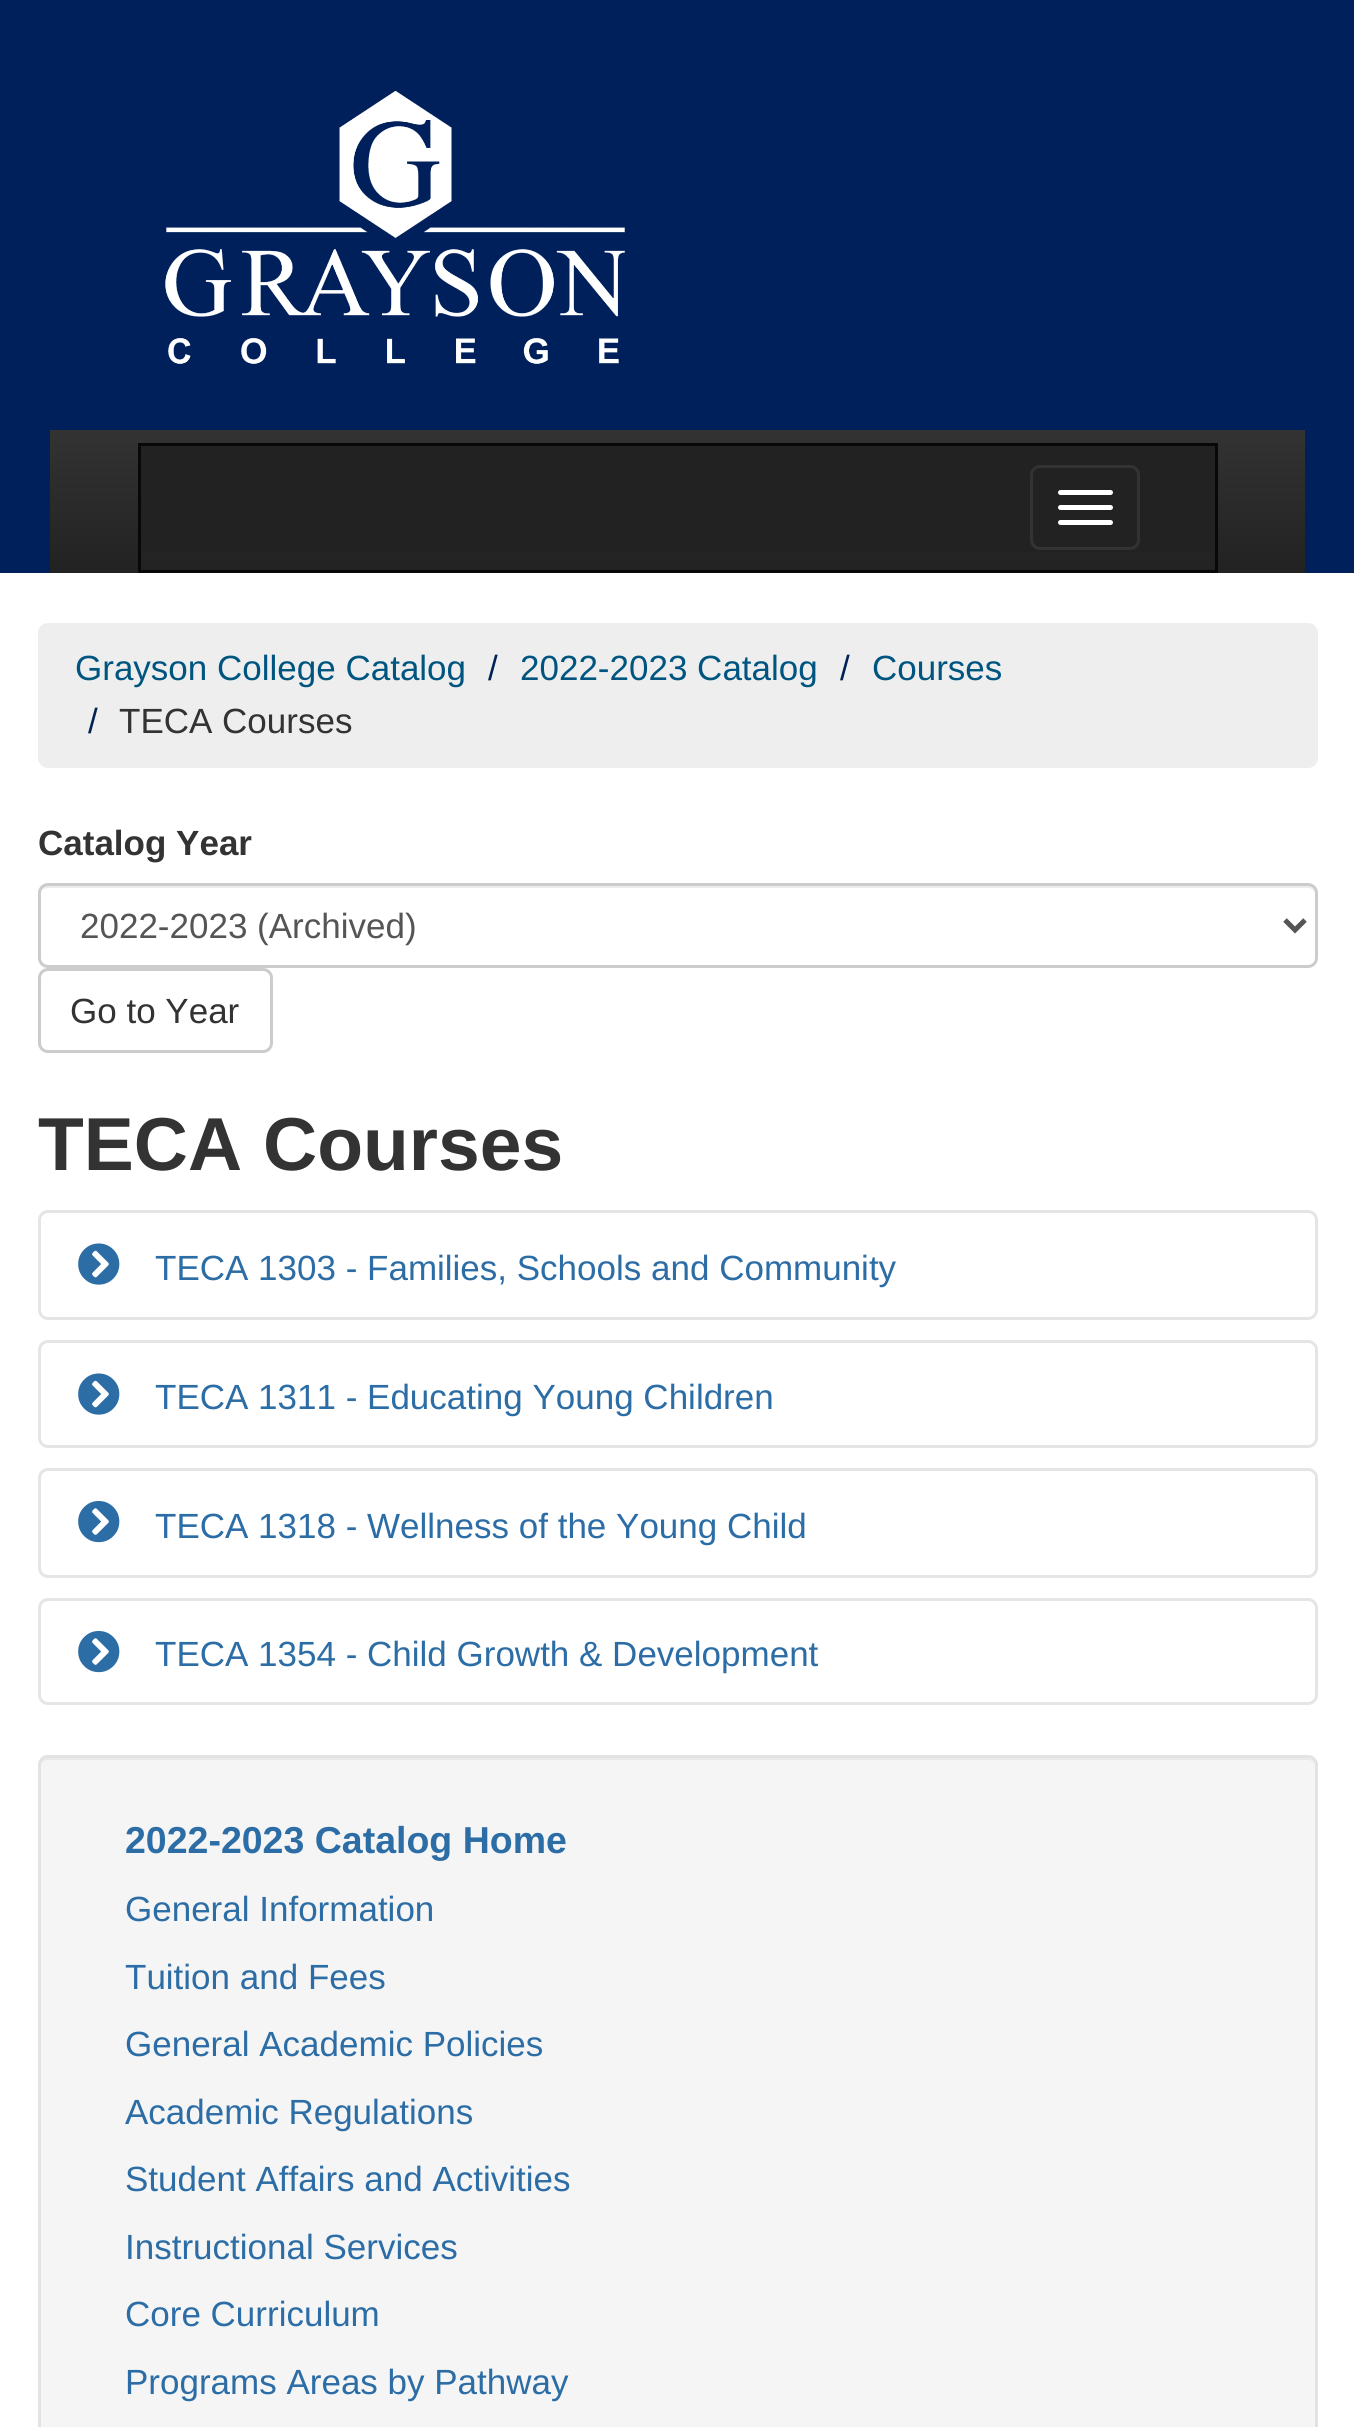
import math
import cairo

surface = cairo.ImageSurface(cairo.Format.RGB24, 1354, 2427)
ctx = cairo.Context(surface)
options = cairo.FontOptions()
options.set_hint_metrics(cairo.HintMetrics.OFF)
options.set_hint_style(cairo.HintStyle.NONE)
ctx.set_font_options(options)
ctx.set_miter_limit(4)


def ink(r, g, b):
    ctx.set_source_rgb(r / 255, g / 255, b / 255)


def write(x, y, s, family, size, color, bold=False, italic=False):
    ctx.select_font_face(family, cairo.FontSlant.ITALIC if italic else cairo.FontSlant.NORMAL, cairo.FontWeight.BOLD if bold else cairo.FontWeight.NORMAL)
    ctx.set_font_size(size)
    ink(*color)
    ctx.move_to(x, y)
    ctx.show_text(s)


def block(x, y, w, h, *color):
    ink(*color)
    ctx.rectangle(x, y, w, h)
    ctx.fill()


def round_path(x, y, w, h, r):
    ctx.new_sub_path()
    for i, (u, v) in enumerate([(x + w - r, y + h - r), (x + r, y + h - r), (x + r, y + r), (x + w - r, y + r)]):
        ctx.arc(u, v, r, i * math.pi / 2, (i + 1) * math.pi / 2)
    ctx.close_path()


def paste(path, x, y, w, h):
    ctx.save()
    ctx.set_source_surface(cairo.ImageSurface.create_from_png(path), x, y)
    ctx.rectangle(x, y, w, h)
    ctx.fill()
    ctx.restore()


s1 = dict(family="Liberation Sans", size=35, color=(0, 85, 128))
s2 = dict(family="Liberation Sans", size=35, color=(0, 34, 84))
s3 = dict(family="Liberation Sans", size=35, color=(51, 51, 51))
s4 = dict(family="Liberation Sans", size=35, color=(51, 51, 51), bold=True)
s5 = dict(family="Liberation Sans", size=35, color=(85, 85, 85))
s6 = dict(family="Liberation Sans", size=75, color=(51, 51, 51), bold=True)
s7 = dict(family="Liberation Sans", size=35, color=(44, 109, 166))
s8 = dict(family="Liberation Sans", size=37.5, color=(44, 109, 166), bold=True)

ink(255, 255, 255)
ctx.paint()
block(0, 0, 1354, 573, 0, 32, 91)
paste("pic1.png", 165, 91, 460, 273)
gradient = cairo.LinearGradient(678, 430, 678, 573)
gradient.add_color_stop_rgba(0, 0.2, 0.2, 0.2, 1)
gradient.add_color_stop_rgba(1, 0.133, 0.133, 0.133, 1)
ctx.set_source(gradient)
ctx.rectangle(50, 430, 1255, 143)
ctx.fill()
block(141, 446, 1074, 106, 34, 34, 34)
ctx.rectangle(139.5, 444.5, 1077, 127)
ink(8, 8, 8)
ctx.set_line_width(3)
ctx.stroke()
round_path(1031.5, 466.5, 107, 82, 8.5)
ink(51, 51, 51)
ctx.stroke()
ink(255, 255, 255)
round_path(1058, 490, 55, 5, 2.5)
ctx.fill()
round_path(1058, 505, 55, 5, 2.5)
ctx.fill()
round_path(1058, 520, 55, 5, 2.5)
ctx.fill()
ink(238, 238, 238)
round_path(38, 623, 1280, 145, 10)
ctx.fill()
write(75, 680, "Grayson College Catalog", **s1)
write(488, 680, "/", **s2)
write(520, 680, "2022-2023 Catalog", **s1)
write(840, 680, "/", **s2)
write(872, 680, "Courses", **s1)
write(88, 733, "/", **s2)
write(119, 733, "TECA Courses", **s3)
write(38, 855, "Catalog Year", **s4)
ink(236, 236, 236)
ctx.new_path()
ctx.move_to(48, 888)
ctx.line_to(1308, 888)
ctx.curve_to(1312, 888, 1315, 891, 1315, 895)
ctx.curve_to(1315, 890, 1313, 885, 1307, 885)
ctx.line_to(48, 885)
ctx.curve_to(42, 885, 40, 890, 40, 895)
ctx.curve_to(40, 891, 43, 888, 48, 888)
ctx.close_path()
ctx.fill()
round_path(39.5, 884.5, 1277, 82, 8.5)
ink(204, 204, 204)
ctx.stroke()
ctx.new_path()
ctx.move_to(1285, 920)
ctx.line_to(1295, 930)
ctx.line_to(1305, 920)
ink(85, 85, 85)
ctx.set_line_width(5)
ctx.stroke()
write(80, 938, "2022-2023 (Archived)", **s5)
round_path(39.5, 969.5, 232, 82, 8.5)
ink(204, 204, 204)
ctx.set_line_width(3)
ctx.stroke()
write(70, 1023, "Go to Year", **s3)
write(38, 1170, "TECA Courses", **s6)
round_path(39.5, 1211.5, 1277, 107, 8.5)
ink(229, 229, 229)
ctx.stroke()
paste("pic2.png", 78, 1243, 42, 42)
write(155, 1280, "TECA 1303 - Families, Schools and Community", **s7)
round_path(39.5, 1341.5, 1277, 105, 8.5)
ink(229, 229, 229)
ctx.stroke()
paste("pic2.png", 78, 1373, 42, 42)
write(155, 1409, "TECA 1311 - Educating Young Children", **s7)
round_path(39.5, 1469.5, 1277, 107, 8.5)
ink(229, 229, 229)
ctx.stroke()
paste("pic3.png", 78, 1501, 42, 42)
write(155, 1538, "TECA 1318 - Wellness of the Young Child", **s7)
round_path(39.5, 1599.5, 1277, 104, 8.5)
ink(229, 229, 229)
ctx.stroke()
paste("pic3.png", 78, 1631, 42, 42)
write(155, 1666, "TECA 1354 - Child Growth & Development", **s7)
ink(245, 245, 245)
round_path(38, 1755, 1280, 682, 10)
ctx.fill()
ink(233, 233, 233)
ctx.new_path()
ctx.move_to(48, 1760)
ctx.line_to(1308, 1760)
ctx.curve_to(1312, 1760, 1315, 1763, 1315, 1768)
ctx.curve_to(1315, 1763, 1313, 1758, 1307, 1758)
ctx.line_to(48, 1758)
ctx.curve_to(42, 1758, 40, 1763, 40, 1768)
ctx.curve_to(40, 1763, 43, 1760, 48, 1760)
ctx.close_path()
ctx.fill()
round_path(39.5, 1756.5, 1277, 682, 8.5)
ink(227, 227, 227)
ctx.stroke()
write(125, 1853, "2022-2023 Catalog Home", **s8)
write(125, 1921, "General Information", **s7)
write(125, 1989, "Tuition and Fees", **s7)
write(125, 2056, "General Academic Policies", **s7)
write(125, 2124, "Academic Regulations", **s7)
write(125, 2191, "Student Affairs and Activities", **s7)
write(125, 2259, "Instructional Services", **s7)
write(125, 2326, "Core Curriculum", **s7)
write(125, 2394, "Programs Areas by Pathway", **s7)
surface.write_to_png("screenshot.png")
